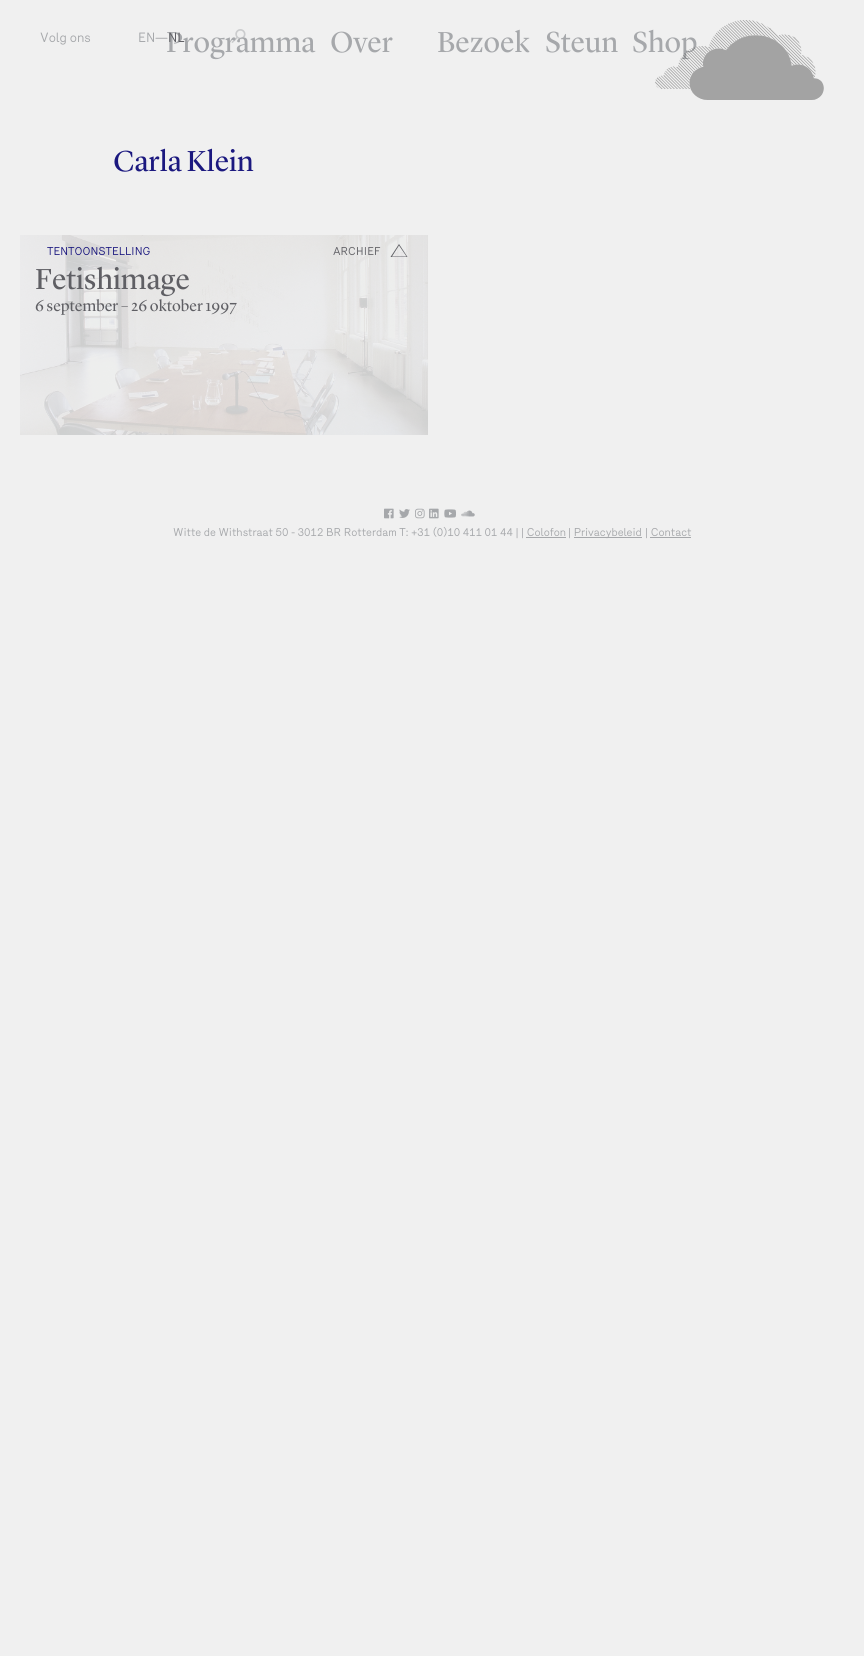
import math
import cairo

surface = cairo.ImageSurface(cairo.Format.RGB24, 864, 1656)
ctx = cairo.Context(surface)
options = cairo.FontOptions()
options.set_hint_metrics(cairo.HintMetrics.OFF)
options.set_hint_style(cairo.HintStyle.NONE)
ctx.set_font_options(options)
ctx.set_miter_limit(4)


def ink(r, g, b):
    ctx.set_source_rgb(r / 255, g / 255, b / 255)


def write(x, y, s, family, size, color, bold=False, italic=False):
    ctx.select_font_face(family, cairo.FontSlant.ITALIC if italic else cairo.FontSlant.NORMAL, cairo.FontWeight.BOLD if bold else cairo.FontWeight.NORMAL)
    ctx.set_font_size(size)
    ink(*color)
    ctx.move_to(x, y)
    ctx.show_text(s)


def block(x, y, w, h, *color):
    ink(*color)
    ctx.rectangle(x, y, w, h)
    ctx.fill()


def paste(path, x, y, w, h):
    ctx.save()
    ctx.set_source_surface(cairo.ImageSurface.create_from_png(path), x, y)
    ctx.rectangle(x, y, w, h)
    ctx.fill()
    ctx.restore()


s1 = dict(family="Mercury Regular", size=13, color=(166, 168, 171))
s2 = dict(family="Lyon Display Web", size=30, color=(166, 168, 171))
s3 = dict(family="Mercury Regular", size=13, color=(95, 95, 100))
s4 = dict(family="Lyon Display Web", size=30, color=(27, 24, 127))
s5 = dict(family="Mercury Regular", size=11, color=(27, 24, 127))
s6 = dict(family="Lyon Display Web", size=30, color=(95, 95, 100))
s7 = dict(family="Lyon Display Web", size=16, color=(95, 95, 100))
s8 = dict(family="Mercury Regular", size=11, color=(95, 95, 100))
s9 = dict(family="Mercury Regular", size=11, color=(166, 168, 171))

ink(240, 240, 240)
ctx.paint()
write(40, 42, "Volg ons", **s1)
write(166, 52, "Programma", **s2)
write(138, 42, "EN—", **s1)
write(168, 42, "NL", **s3)
paste("pic1.png", 231, 29, 15, 14)
write(330, 52, "Over", **s2)
write(437, 52, "Bezoek", **s2)
write(545, 52, "Steun", **s2)
write(632, 52, "Shop", **s2)
paste("pic2.png", 655, 20, 169, 80)
write(113, 171, "Carla Klein", **s4)
paste("pic3.png", 20, 235, 408, 200)
write(47, 255, "TENTOONSTELLING", **s5)
write(35, 289, "Fetishimage", **s6)
write(35, 311, "6 september – 26 oktober 1997", **s7)
write(333, 255, "ARCHIEF", **s8)
ctx.new_path()
ctx.move_to(390.5, 257)
ctx.line_to(407.5, 257)
ctx.line_to(399, 244)
ctx.close_path()
ctx.move_to(406.5, 256.5)
ctx.line_to(392, 256.5)
ctx.line_to(399, 245.5)
ctx.close_path()
ctx.fill()
paste("pic4.png", 384, 508, 10, 11)
paste("pic5.png", 399, 509, 11, 9)
paste("pic6.png", 415, 508, 10, 11)
paste("pic7.png", 429, 508, 10, 11)
paste("pic8.png", 444, 509, 12, 9)
paste("pic9.png", 461, 510, 14, 7)
write(173, 536, "Witte de Withstraat 50 - 3012 BR Rotterdam T: +31 (0)10 411 01 44 | | Colofon", **s9)
write(568, 536, "| Privacybeleid", **s9)
write(645, 536, "| Contact", **s9)
block(526, 537, 40, 1, 166, 168, 171)
block(574, 537, 68, 1, 166, 168, 171)
block(650, 537, 41, 1, 166, 168, 171)
surface.write_to_png("screenshot.png")
